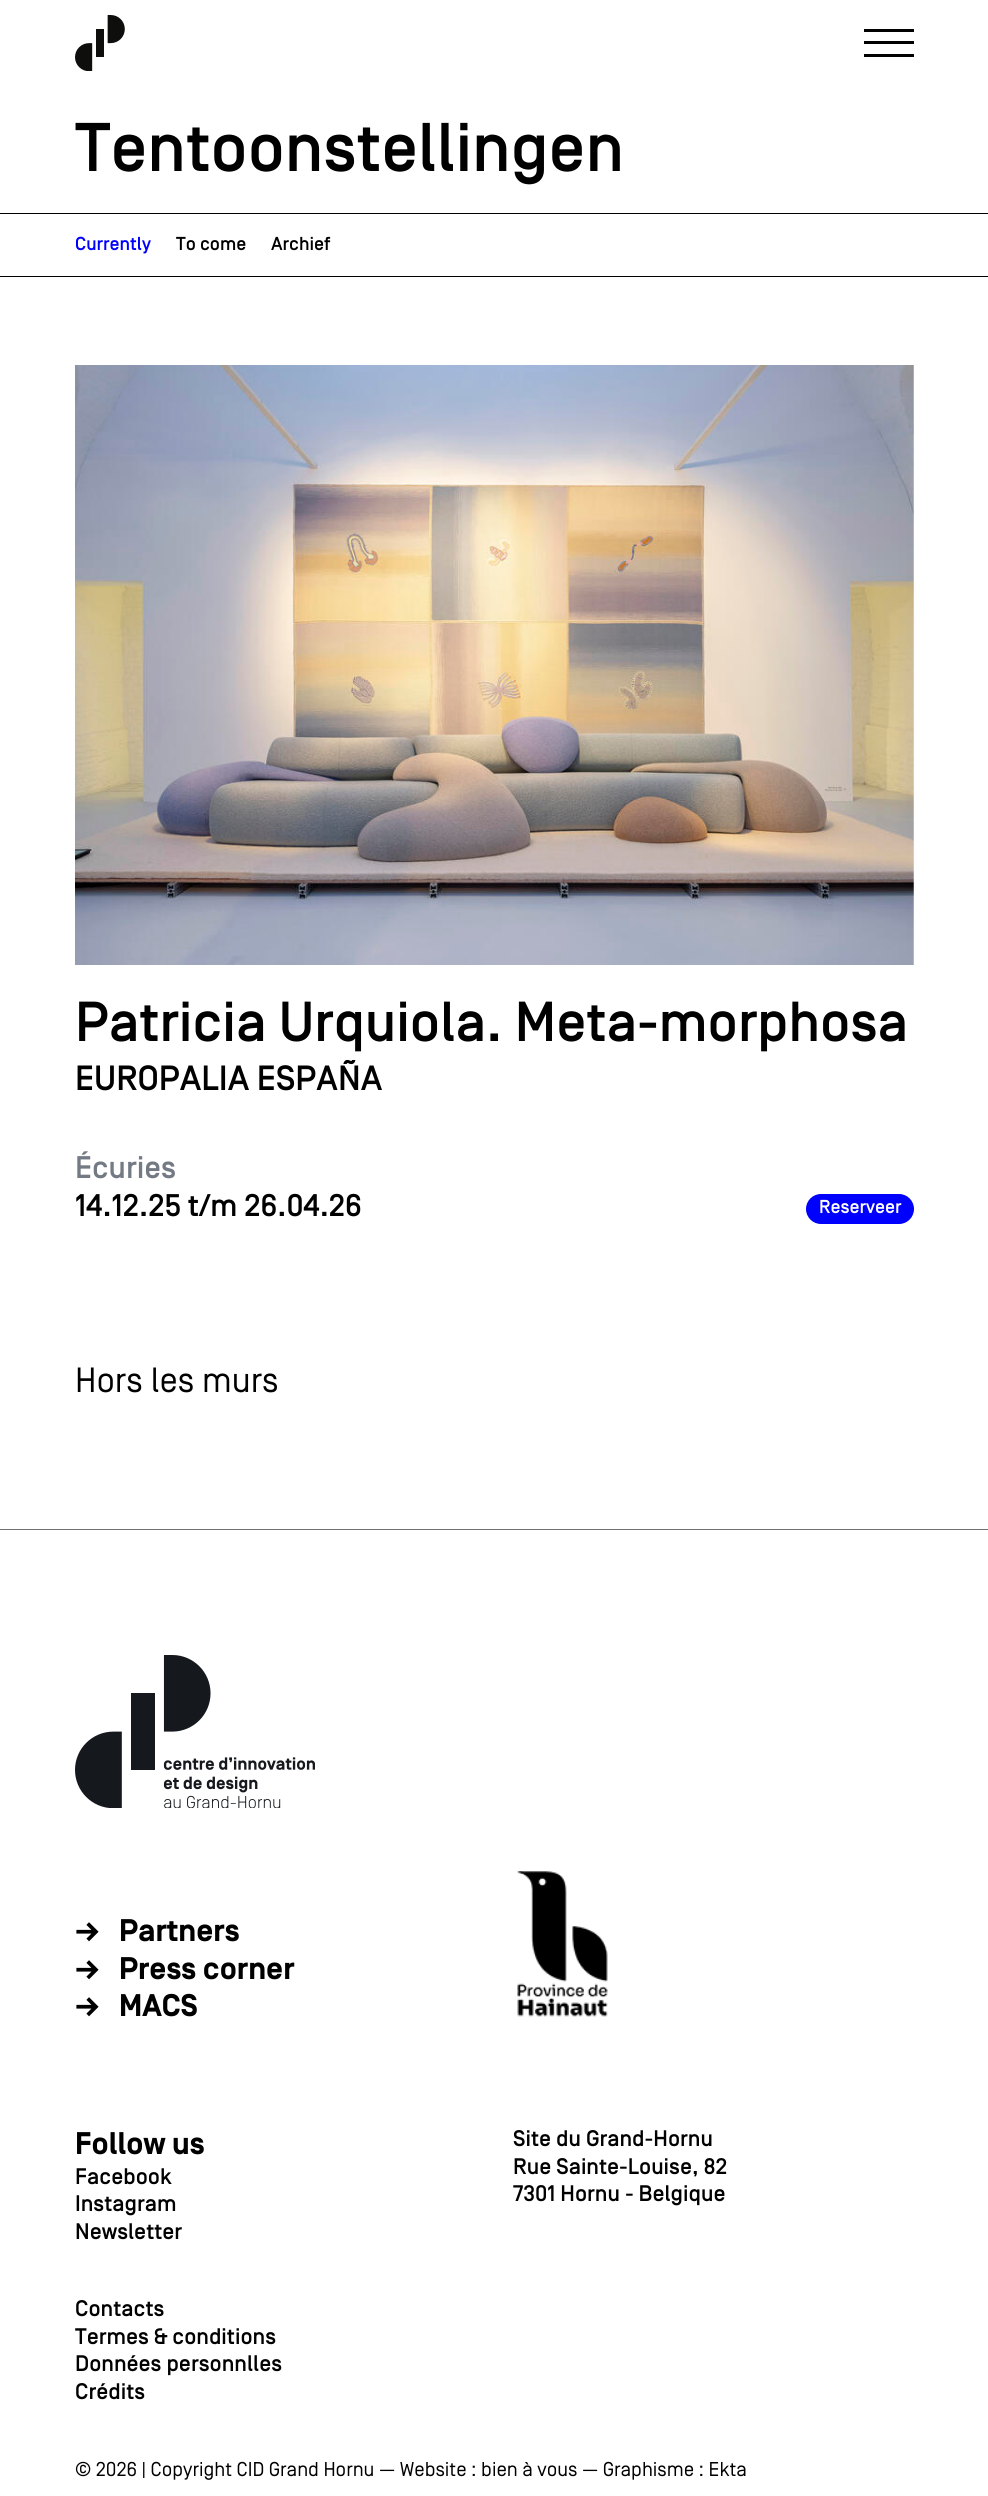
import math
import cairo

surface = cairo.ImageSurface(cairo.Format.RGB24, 988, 2496)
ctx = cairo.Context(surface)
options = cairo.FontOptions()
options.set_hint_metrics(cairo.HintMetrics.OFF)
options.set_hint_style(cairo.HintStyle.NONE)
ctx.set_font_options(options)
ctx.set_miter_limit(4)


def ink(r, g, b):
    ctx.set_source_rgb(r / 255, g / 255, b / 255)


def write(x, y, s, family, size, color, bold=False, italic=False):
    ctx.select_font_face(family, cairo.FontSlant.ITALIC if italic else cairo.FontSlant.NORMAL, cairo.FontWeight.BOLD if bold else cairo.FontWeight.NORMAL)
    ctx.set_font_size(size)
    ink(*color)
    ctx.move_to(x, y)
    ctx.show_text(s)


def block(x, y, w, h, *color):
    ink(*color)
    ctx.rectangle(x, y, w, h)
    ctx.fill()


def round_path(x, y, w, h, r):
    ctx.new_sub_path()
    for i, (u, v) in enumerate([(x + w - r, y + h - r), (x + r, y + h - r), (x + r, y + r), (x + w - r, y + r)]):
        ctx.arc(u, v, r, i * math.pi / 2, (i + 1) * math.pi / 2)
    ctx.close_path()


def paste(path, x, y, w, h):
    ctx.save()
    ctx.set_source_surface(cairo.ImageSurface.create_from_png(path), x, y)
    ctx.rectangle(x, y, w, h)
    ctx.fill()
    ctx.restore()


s1 = dict(family="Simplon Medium", size=68.75, color=(0, 0, 0))
s2 = dict(family="Simplon Medium", size=18.75, color=(0, 0, 255))
s3 = dict(family="Simplon Medium", size=18.75, color=(0, 0, 0))
s4 = dict(family="Simplon Medium", size=56.25, color=(0, 0, 0))
s5 = dict(family="Simplon Medium", size=35, color=(0, 0, 0))
s6 = dict(family="Simplon Medium", size=31.25, color=(115, 122, 132))
s7 = dict(family="Simplon Medium", size=31.25, color=(0, 0, 0))
s8 = dict(family="Simplon Medium", size=18.75, color=(255, 255, 255))
s9 = dict(family="Simplon", size=35, color=(0, 0, 0))
s10 = dict(family="Simplon", size=31.25, color=(0, 0, 0), bold=True)
s11 = dict(family="Simplon Medium", size=22.5, color=(0, 0, 0))
s12 = dict(family="Simplon", size=20, color=(0, 0, 0))

ink(255, 255, 255)
ctx.paint()
paste("pic1.png", 75, 15, 50, 56)
block(864, 41, 50, 3, 0, 0, 0)
block(864, 29, 50, 3, 0, 0, 0)
block(864, 54, 50, 3, 0, 0, 0)
write(75, 171, "Tentoonstellingen", **s1)
block(0, 213, 988, 1, 0, 0, 0)
block(0, 276, 988, 1, 0, 0, 0)
write(75, 250, "Currently", **s2)
write(176, 250, "To come", **s3)
write(271, 250, "Archief", **s3)
paste("pic2.png", 75, 365, 839, 600)
write(75, 1041, "Patricia Urquiola. Meta-morphosa", **s4)
write(75, 1090, "EUROPALIA ESPAÑA", **s5)
write(75, 1178, "Écuries", **s6)
write(75, 1216, "14.12.25 t/m 26.04.26", **s7)
ink(0, 0, 255)
round_path(806, 1194, 108, 30, 15)
ctx.fill()
write(819, 1213, "Reserveer", **s8)
write(75, 1392, "Hors les murs", **s9)
block(0, 1529, 988, 1, 112, 112, 112)
paste("pic3.png", 75, 1655, 240, 153)
write(75, 1941, "→", **s10)
write(119, 1941, "Partners", **s10)
write(75, 1979, "→", **s10)
write(119, 1979, "Press corner", **s10)
write(75, 2016, "→", **s10)
write(119, 2016, "MACS", **s10)
paste("pic4.png", 517, 1871, 91, 146)
write(75, 2154, "Follow us", **s10)
write(75, 2184, "Facebook", **s11)
write(75, 2211, "Instagram", **s11)
write(75, 2239, "Newsletter", **s11)
write(513, 2146, "Site du Grand-Hornu", **s11)
write(513, 2174, "Rue Sainte-Louise, 82", **s11)
write(513, 2201, "7301 Hornu - Belgique", **s11)
write(75, 2316, "Contacts", **s11)
write(75, 2344, "Termes & conditions", **s11)
write(75, 2371, "Données personnlles", **s11)
write(75, 2399, "Crédits", **s11)
write(75, 2476, "© 2026 | Copyright CID Grand Hornu — Website : bien à vous — Graphisme : Ekta", **s12)
surface.write_to_png("screenshot.png")
